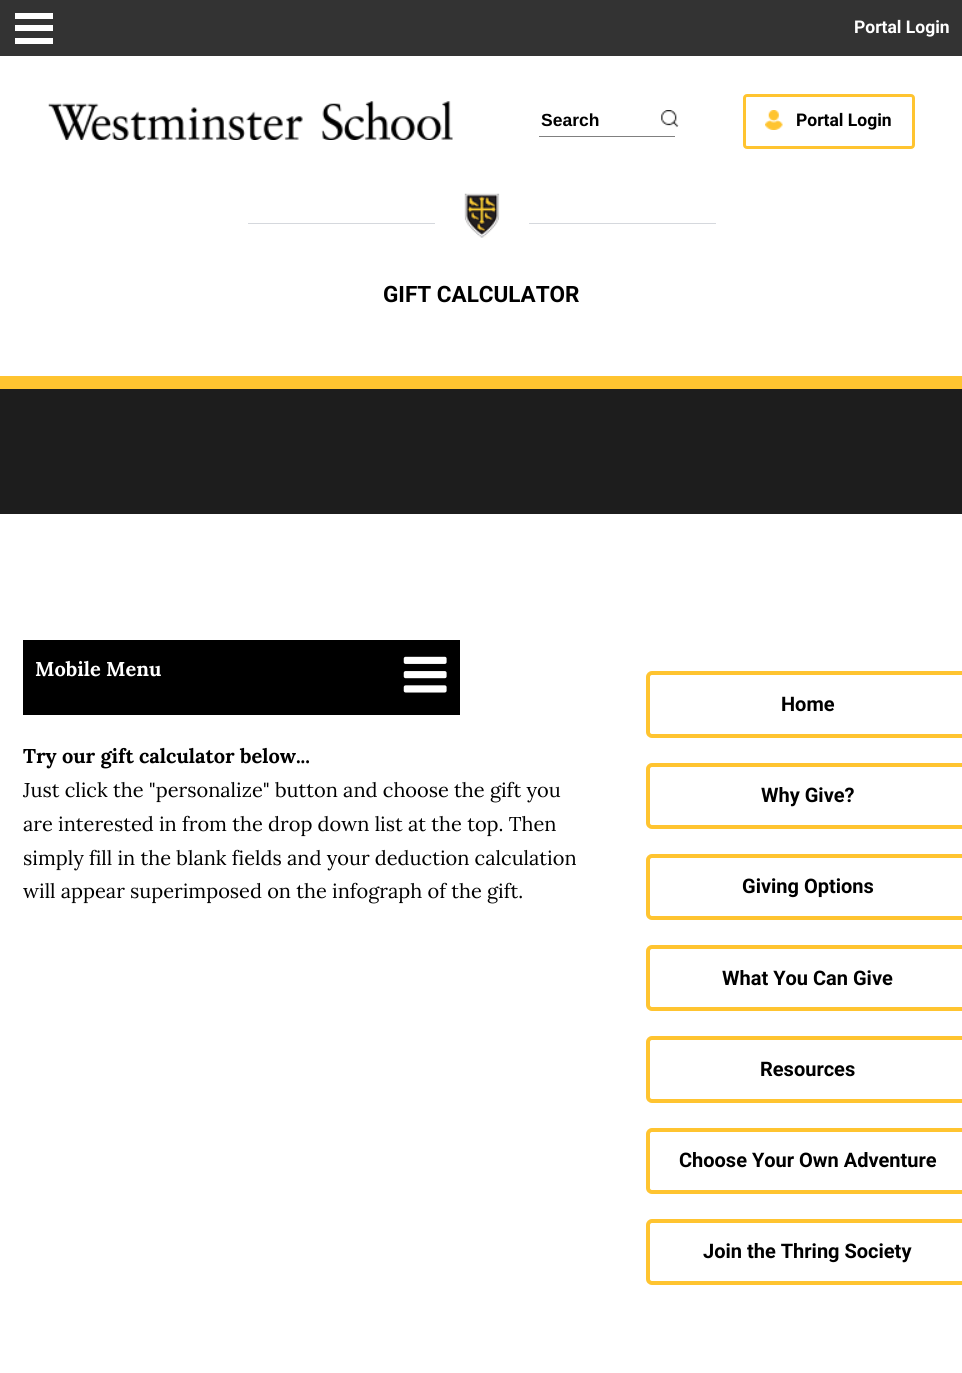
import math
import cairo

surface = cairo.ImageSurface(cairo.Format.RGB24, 962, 1373)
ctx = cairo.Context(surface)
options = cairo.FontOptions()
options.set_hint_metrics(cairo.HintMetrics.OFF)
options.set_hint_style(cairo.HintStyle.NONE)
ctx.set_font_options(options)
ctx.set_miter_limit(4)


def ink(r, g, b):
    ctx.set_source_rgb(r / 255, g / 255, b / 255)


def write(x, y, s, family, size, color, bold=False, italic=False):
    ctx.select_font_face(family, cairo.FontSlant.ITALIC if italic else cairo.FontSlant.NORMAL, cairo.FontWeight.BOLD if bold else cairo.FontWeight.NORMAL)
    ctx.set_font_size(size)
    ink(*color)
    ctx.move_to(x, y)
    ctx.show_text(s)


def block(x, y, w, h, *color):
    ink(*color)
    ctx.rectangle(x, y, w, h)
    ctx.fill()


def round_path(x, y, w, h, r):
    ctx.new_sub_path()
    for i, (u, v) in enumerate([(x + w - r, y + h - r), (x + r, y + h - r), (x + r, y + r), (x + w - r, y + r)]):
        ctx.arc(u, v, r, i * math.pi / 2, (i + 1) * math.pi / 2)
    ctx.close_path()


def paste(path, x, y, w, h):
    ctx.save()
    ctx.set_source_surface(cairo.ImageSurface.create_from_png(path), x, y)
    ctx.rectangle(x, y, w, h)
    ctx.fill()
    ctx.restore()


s1 = dict(family="Roboto", size=17.5, color=(255, 255, 255), bold=True)
s2 = dict(family="Liberation Sans", size=17.5, color=(0, 0, 0), bold=True)
s3 = dict(family="Roboto", size=17.5, color=(0, 0, 0), bold=True)
s4 = dict(family="Roboto", size=22.5, color=(0, 0, 0), bold=True)
s5 = dict(family="Lora", size=20, color=(255, 255, 255), bold=True)
s6 = dict(family="Lora", size=20, color=(0, 0, 0), bold=True)
s7 = dict(family="Lora", size=20, color=(0, 0, 0))
s8 = dict(family="Roboto", size=20, color=(0, 0, 0), bold=True)

ink(255, 255, 255)
ctx.paint()
block(0, 0, 962, 56, 51, 51, 51)
block(15, 25, 38, 6, 255, 255, 255)
block(15, 13, 38, 6, 255, 255, 255)
block(15, 38, 38, 6, 255, 255, 255)
write(854, 33, "Portal Login", **s1)
paste("pic1.png", 48, 101, 405, 39)
block(539, 136, 136, 1, 128, 128, 128)
write(541, 126, "Search", **s2)
paste("pic2.png", 661, 110, 18, 18)
round_path(744.5, 95.5, 169, 52, 2.5)
ink(255, 196, 48)
ctx.set_line_width(3)
ctx.stroke()
paste("pic3.png", 765, 110, 18, 20)
write(796, 126, "Portal Login", **s3)
block(248, 223, 187, 1, 213, 216, 221)
paste("pic4.png", 464, 193, 36, 46)
block(529, 223, 187, 1, 213, 216, 221)
write(383, 302, "GIFT CALCULATOR", **s4)
block(0, 389, 962, 125, 29, 29, 29)
block(0, 376, 962, 13, 255, 196, 48)
block(23, 640, 437, 75, 0, 0, 0)
write(35, 676, "Mobile Menu", **s5)
paste("pic5.png", 403, 656, 44, 37)
write(23, 763, "Try our gift calculator below...", **s6)
write(23, 797, "Just click the \"personalize\" button and choose the gift you", **s7)
write(23, 831, "are interested in from the drop down list at the top. Then", **s7)
write(23, 865, "simply fill in the blank fields and your deduction calculation", **s7)
write(23, 898, "will appear superimposed on the infograph of the gift.", **s7)
round_path(648, 673, 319, 63, 4)
ink(255, 196, 48)
ctx.set_line_width(4)
ctx.stroke()
write(781, 711, "Home", **s8)
round_path(648, 765, 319, 62, 4)
ink(255, 196, 48)
ctx.stroke()
write(761, 802, "Why Give?", **s8)
round_path(648, 856, 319, 62, 4)
ink(255, 196, 48)
ctx.stroke()
write(742, 893, "Giving Options", **s8)
round_path(648, 947, 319, 62, 4)
ink(255, 196, 48)
ctx.stroke()
write(722, 985, "What You Can Give", **s8)
round_path(648, 1038, 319, 63, 4)
ink(255, 196, 48)
ctx.stroke()
write(760, 1076, "Resources", **s8)
round_path(648, 1130, 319, 62, 4)
ink(255, 196, 48)
ctx.stroke()
write(679, 1167, "Choose Your Own Adventure", **s8)
round_path(648, 1221, 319, 62, 4)
ink(255, 196, 48)
ctx.stroke()
write(703, 1258, "Join the Thring Society", **s8)
surface.write_to_png("screenshot.png")
